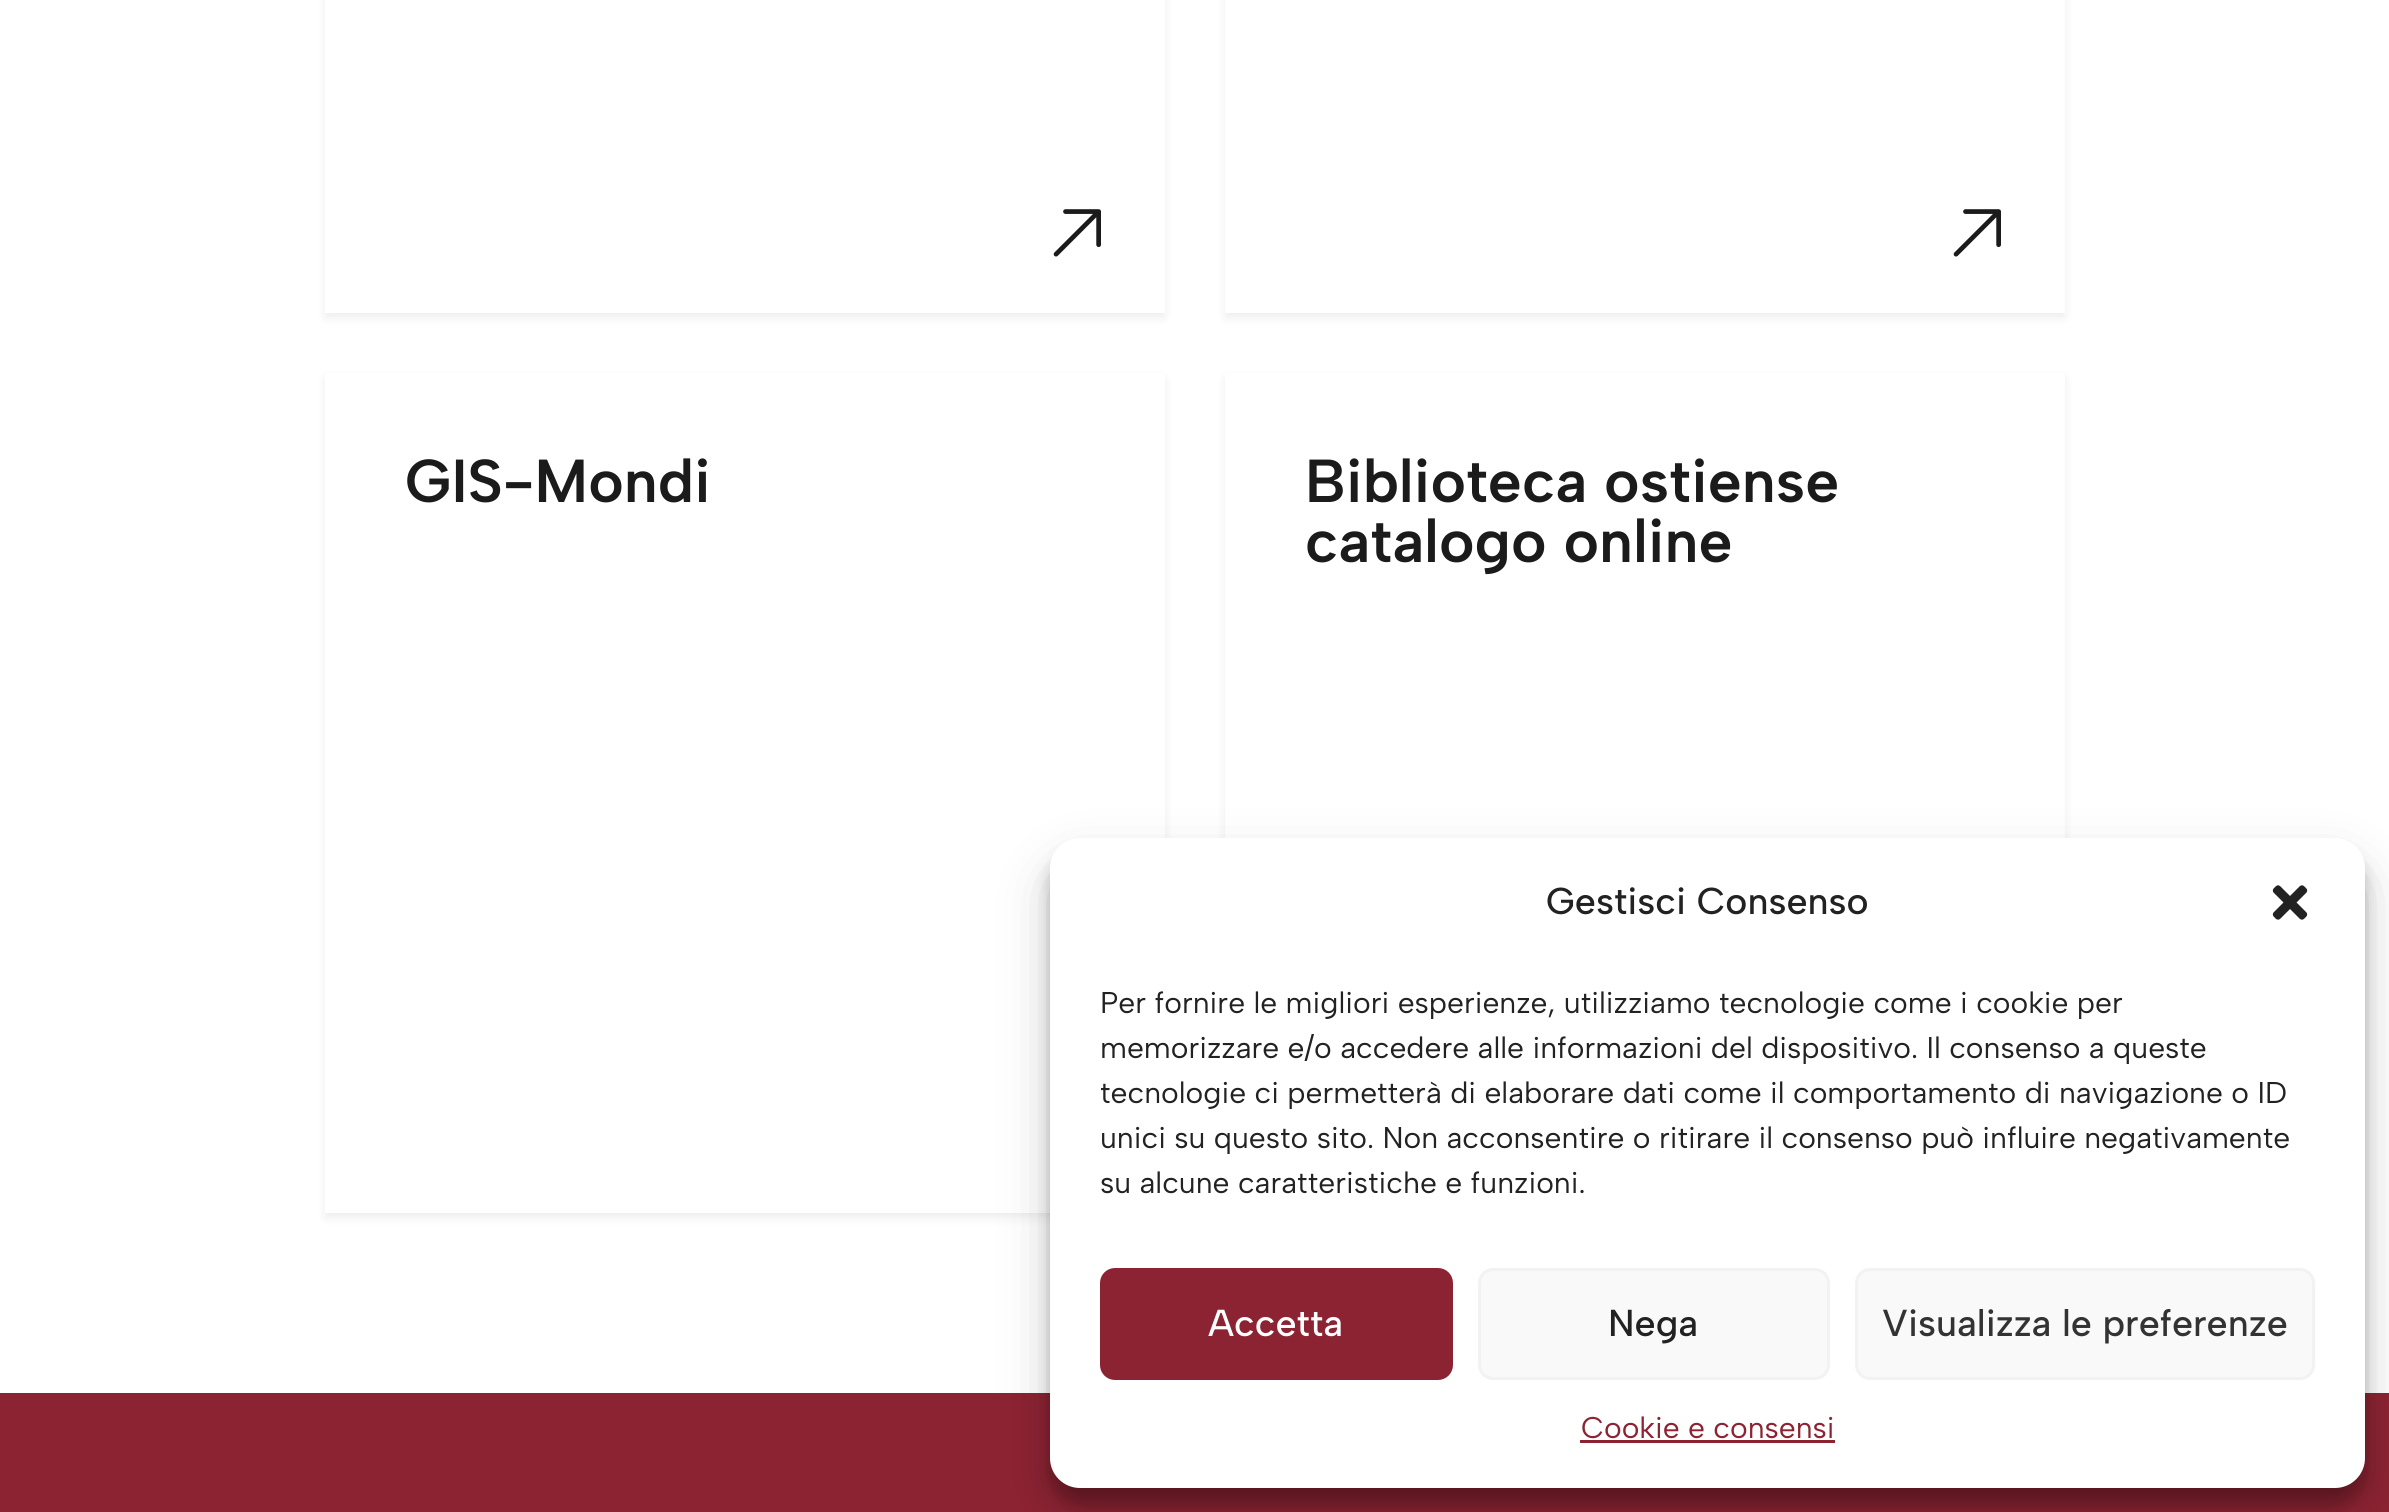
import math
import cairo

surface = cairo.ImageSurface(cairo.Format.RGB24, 2389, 1512)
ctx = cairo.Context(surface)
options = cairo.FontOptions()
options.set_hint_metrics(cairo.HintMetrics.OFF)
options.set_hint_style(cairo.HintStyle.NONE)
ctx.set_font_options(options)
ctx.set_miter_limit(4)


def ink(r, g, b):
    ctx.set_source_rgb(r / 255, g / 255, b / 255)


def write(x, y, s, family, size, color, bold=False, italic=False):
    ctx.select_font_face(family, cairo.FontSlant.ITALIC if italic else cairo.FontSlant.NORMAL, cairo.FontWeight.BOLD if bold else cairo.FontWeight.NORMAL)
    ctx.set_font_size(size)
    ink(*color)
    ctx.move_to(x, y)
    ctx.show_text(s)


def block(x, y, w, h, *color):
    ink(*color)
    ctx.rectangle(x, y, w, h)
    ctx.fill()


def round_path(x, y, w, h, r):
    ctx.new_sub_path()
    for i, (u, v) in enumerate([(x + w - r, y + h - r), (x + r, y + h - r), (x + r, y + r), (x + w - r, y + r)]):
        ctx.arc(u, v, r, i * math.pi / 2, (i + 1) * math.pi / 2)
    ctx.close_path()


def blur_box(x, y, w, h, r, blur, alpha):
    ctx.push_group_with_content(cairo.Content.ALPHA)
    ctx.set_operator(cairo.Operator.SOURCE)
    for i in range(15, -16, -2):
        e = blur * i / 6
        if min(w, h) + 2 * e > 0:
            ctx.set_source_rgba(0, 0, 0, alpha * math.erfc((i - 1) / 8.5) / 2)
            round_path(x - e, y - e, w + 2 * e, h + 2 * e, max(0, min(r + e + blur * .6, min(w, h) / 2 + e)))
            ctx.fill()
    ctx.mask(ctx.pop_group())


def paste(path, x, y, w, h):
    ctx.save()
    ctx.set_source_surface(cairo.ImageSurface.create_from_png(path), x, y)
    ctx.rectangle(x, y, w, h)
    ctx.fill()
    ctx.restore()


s1 = dict(family="Albert Sans SemiBold", size=60.6, color=(27, 27, 27))
s2 = dict(family="Albert Sans Medium", size=37.5, color=(34, 34, 34))
s3 = dict(family="Albert Sans", size=30, color=(34, 34, 34))
s4 = dict(family="Albert Sans Medium", size=37.5, color=(255, 255, 255))
s5 = dict(family="Albert Sans Medium", size=37.5, color=(51, 51, 51))
s6 = dict(family="Albert Sans", size=30, color=(140, 35, 50))

ink(255, 255, 255)
ctx.paint()
ctx.save()
ctx.set_fill_rule(cairo.FillRule.EVEN_ODD)
ctx.new_path()
ctx.move_to(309, 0)
ctx.line_to(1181, 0)
ctx.line_to(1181, 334)
ctx.line_to(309, 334)
ctx.close_path()
ctx.move_to(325, -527)
ctx.line_to(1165, -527)
ctx.line_to(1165, 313)
ctx.line_to(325, 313)
ctx.close_path()
ctx.clip()
ink(0, 0, 0)
blur_box(325, -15, 840, 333, 0, 5, 0.07)
ctx.restore()
paste("pic1.png", 1053, 209, 48, 48)
ctx.save()
ctx.set_fill_rule(cairo.FillRule.EVEN_ODD)
ctx.new_path()
ctx.move_to(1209, 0)
ctx.line_to(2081, 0)
ctx.line_to(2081, 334)
ctx.line_to(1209, 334)
ctx.close_path()
ctx.move_to(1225, -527)
ctx.line_to(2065, -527)
ctx.line_to(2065, 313)
ctx.line_to(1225, 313)
ctx.close_path()
ctx.clip()
ink(0, 0, 0)
blur_box(1225, -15, 840, 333, 0, 5, 0.07)
ctx.restore()
paste("pic1.png", 1953, 209, 48, 48)
ctx.save()
ctx.set_fill_rule(cairo.FillRule.EVEN_ODD)
ctx.new_path()
ctx.move_to(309, 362)
ctx.line_to(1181, 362)
ctx.line_to(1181, 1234)
ctx.line_to(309, 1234)
ctx.close_path()
ctx.move_to(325, 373)
ctx.line_to(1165, 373)
ctx.line_to(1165, 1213)
ctx.line_to(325, 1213)
ctx.close_path()
ctx.clip()
ink(0, 0, 0)
blur_box(325, 378, 840, 840, 0, 5, 0.07)
ctx.restore()
write(405, 502, "GIS-Mondi", **s1)
ctx.save()
ctx.set_fill_rule(cairo.FillRule.EVEN_ODD)
ctx.new_path()
ctx.move_to(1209, 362)
ctx.line_to(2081, 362)
ctx.line_to(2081, 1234)
ctx.line_to(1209, 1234)
ctx.close_path()
ctx.move_to(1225, 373)
ctx.line_to(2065, 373)
ctx.line_to(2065, 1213)
ctx.line_to(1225, 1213)
ctx.close_path()
ctx.clip()
ink(0, 0, 0)
blur_box(1225, 378, 840, 840, 0, 5, 0.07)
ctx.restore()
write(1305, 502, "Biblioteca ostiense", **s1)
write(1305, 562, "catalogo online", **s1)
block(0, 1393, 2389, 119, 140, 35, 50)
ink(0, 0, 0)
blur_box(1050, 853, 1315, 650, 30, 7.5, 0.23)
blur_box(1050, 863, 1315, 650, 30, 25, 0.19)
ink(255, 255, 255)
round_path(1050, 838, 1315, 650, 30)
ctx.fill()
write(1546, 914, "Gestisci Consenso", **s2)
paste("pic2.png", 2272, 885, 36, 35)
write(1100, 1013, "Per fornire le migliori esperienze, utilizziamo tecnologie come i cookie per", **s3)
write(1100, 1058, "memorizzare e/o accedere alle informazioni del dispositivo. Il consenso a queste", **s3)
write(1100, 1103, "tecnologie ci permetterà di elaborare dati come il comportamento di navigazione o ID", **s3)
write(1100, 1148, "unici su questo sito. Non acconsentire o ritirare il consenso può influire negativamente", **s3)
write(1100, 1193, "su alcune caratteristiche e funzioni.", **s3)
ink(140, 35, 50)
round_path(1101.5, 1269.5, 350, 109, 13.5)
ctx.fill_preserve()
ctx.set_line_width(3)
ctx.stroke()
write(1208, 1336, "Accetta", **s4)
ink(249, 249, 249)
round_path(1479.5, 1269.5, 349, 109, 13.5)
ctx.fill_preserve()
ink(242, 242, 242)
ctx.stroke()
write(1608, 1336, "Nega", **s2)
ink(249, 249, 249)
round_path(1856.5, 1269.5, 457, 109, 13.5)
ctx.fill_preserve()
ink(242, 242, 242)
ctx.stroke()
write(1882, 1336, "Visualizza le preferenze", **s5)
write(1581, 1438, "Cookie e consensi", **s6)
block(1580, 1440, 255, 3, 140, 35, 50)
surface.write_to_png("screenshot.png")
